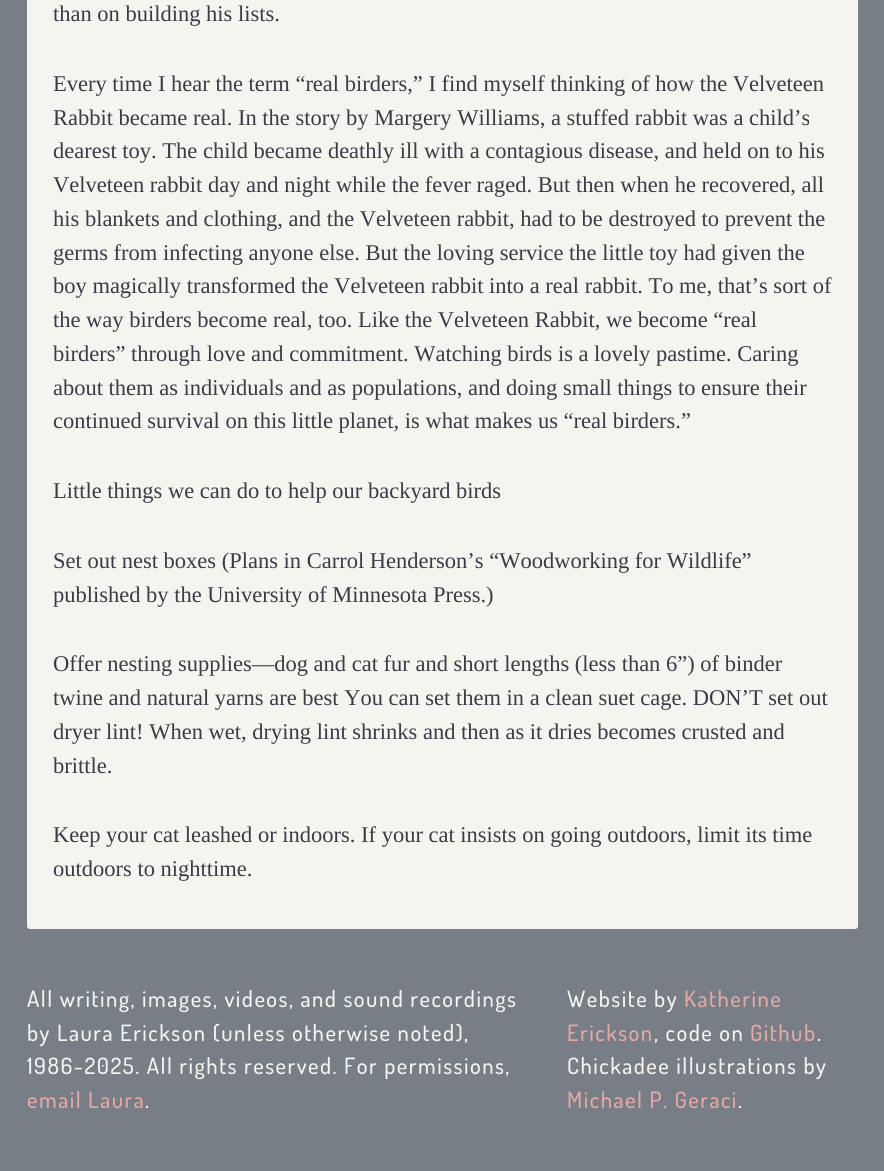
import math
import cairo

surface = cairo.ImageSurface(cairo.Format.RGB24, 884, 1171)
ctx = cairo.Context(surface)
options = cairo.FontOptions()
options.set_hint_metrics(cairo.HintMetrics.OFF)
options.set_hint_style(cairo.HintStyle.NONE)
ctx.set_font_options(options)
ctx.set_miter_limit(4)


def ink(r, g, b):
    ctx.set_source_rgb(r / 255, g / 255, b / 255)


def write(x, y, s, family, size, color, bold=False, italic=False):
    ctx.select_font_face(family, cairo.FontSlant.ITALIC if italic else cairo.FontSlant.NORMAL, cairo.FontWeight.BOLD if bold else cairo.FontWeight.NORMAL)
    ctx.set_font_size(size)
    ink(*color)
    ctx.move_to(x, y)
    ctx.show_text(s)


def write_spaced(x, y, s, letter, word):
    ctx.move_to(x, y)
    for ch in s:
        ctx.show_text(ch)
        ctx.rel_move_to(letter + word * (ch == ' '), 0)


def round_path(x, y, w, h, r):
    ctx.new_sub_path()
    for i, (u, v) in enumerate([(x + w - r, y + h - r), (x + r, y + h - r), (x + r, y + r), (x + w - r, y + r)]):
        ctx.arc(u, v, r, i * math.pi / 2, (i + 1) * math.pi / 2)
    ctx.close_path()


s1 = dict(family="Liberation Serif", size=22.5, color=(60, 58, 71))

ink(119, 126, 134)
ctx.paint()
ink(245, 244, 238)
round_path(27, -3, 831, 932, 3)
ctx.fill()
write(53, 21, "than on building his lists.", **s1)
write(53, 91, "Every time I hear the term “real birders,” I find myself thinking of how the Velveteen", **s1)
write(53, 125, "Rabbit became real. In the story by Margery Williams, a stuffed rabbit was a child’s", **s1)
write(53, 158, "dearest toy. The child became deathly ill with a contagious disease, and held on to his", **s1)
write(53, 192, "Velveteen rabbit day and night while the fever raged. But then when he recovered, all", **s1)
write(53, 226, "his blankets and clothing, and the Velveteen rabbit, had to be destroyed to prevent the", **s1)
write(53, 260, "germs from infecting anyone else. But the loving service the little toy had given the", **s1)
write(53, 293, "boy magically transformed the Velveteen rabbit into a real rabbit. To me, that’s sort of", **s1)
write(53, 327, "the way birders become real, too. Like the Velveteen Rabbit, we become “real", **s1)
write(53, 361, "birders” through love and commitment. Watching birds is a lovely pastime. Caring", **s1)
write(53, 395, "about them as individuals and as populations, and doing small things to ensure their", **s1)
write(53, 428, "continued survival on this little planet, is what makes us “real birders.”", **s1)
write(53, 498, "Little things we can do to help our backyard birds", **s1)
write(53, 568, "Set out nest boxes (Plans in Carrol Henderson’s “Woodworking for Wildlife”", **s1)
write(53, 602, "published by the University of Minnesota Press.)", **s1)
write(53, 671, "Offer nesting supplies—dog and cat fur and short lengths (less than 6”) of binder", **s1)
write(53, 705, "twine and natural yarns are best You can set them in a clean suet cage. DON’T set out", **s1)
write(53, 739, "dryer lint! When wet, drying lint shrinks and then as it dries becomes crusted and", **s1)
write(53, 773, "brittle.", **s1)
write(53, 842, "Keep your cat leashed or indoors. If your cat insists on going outdoors, limit its time", **s1)
write(53, 876, "outdoors to nighttime.", **s1)
ctx.select_font_face("Dosis Medium")
ink(245, 244, 238)
write_spaced(27, 1007, "All writing, images, videos, and sound recordings", 1.5, 0)
write_spaced(27, 1041, "by Laura Erickson (unless otherwise noted),", 1.5, 0)
write_spaced(27, 1074, "1986-2025. All rights reserved. For permissions,", 1.5, 0)
ink(230, 168, 164)
write_spaced(27, 1108, "email Laura", 1.5, 0)
ink(245, 244, 238)
write_spaced(145, 1108, ".", 1.5, 0)
write_spaced(567, 1007, "Website by", 1.5, 0)
ink(230, 168, 164)
write_spaced(684, 1007, "Katherine", 1.5, 0)
write_spaced(567, 1041, "Erickson", 1.5, 0)
ink(245, 244, 238)
write_spaced(654, 1041, ", code on", 1.5, 0)
ink(230, 168, 164)
write_spaced(750, 1041, "Github", 1.5, 0)
ink(245, 244, 238)
write_spaced(817, 1041, ".", 1.5, 0)
write_spaced(567, 1074, "Chickadee illustrations by", 1.5, 0)
ink(230, 168, 164)
write_spaced(567, 1108, "Michael P. Geraci", 1.5, 0)
ink(245, 244, 238)
write_spaced(738, 1108, ".", 1.5, 0)
surface.write_to_png("screenshot.png")
